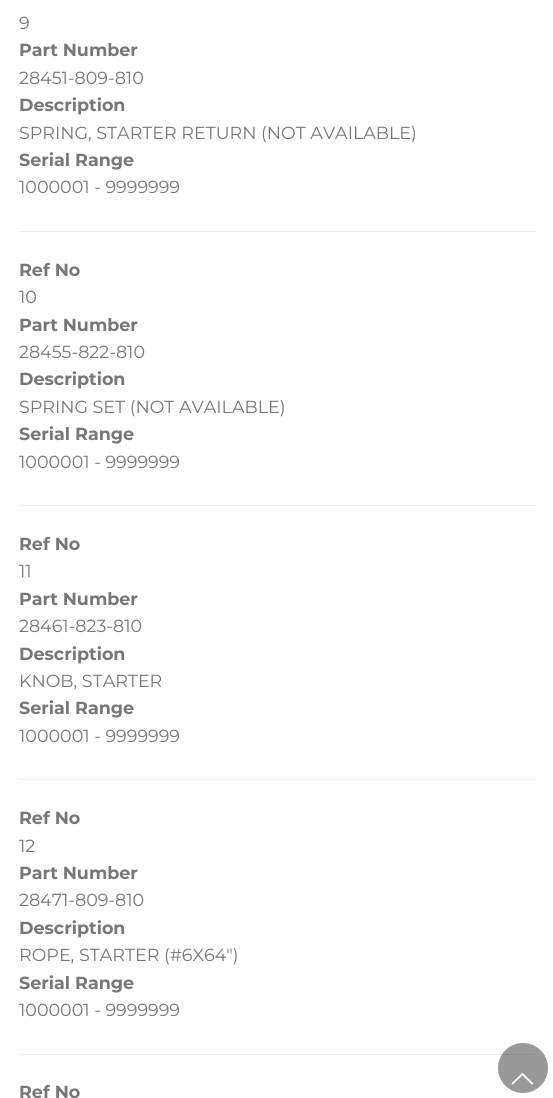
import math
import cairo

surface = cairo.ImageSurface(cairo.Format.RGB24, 553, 1098)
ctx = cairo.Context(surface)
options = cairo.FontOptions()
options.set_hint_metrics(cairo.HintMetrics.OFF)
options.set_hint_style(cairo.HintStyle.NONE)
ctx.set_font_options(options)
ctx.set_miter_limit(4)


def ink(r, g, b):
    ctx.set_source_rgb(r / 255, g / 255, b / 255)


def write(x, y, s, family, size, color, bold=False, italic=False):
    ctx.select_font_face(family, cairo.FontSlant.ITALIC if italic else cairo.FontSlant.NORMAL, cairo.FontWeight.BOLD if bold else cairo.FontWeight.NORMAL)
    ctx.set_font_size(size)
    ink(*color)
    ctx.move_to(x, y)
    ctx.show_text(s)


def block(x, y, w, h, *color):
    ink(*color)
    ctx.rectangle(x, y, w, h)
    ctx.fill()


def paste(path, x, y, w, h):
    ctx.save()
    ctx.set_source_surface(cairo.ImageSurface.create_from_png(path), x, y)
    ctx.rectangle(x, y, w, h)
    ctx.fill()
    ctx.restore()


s1 = dict(family="Montserrat", size=17.5, color=(119, 119, 119))
s2 = dict(family="Montserrat", size=17.5, color=(119, 119, 119), bold=True)

ink(255, 255, 255)
ctx.paint()
write(19, 29, "9", **s1)
write(19, 56, "Part Number", **s2)
write(19, 84, "28451-809-810", **s1)
write(19, 111, "Description", **s2)
write(19, 139, "SPRING, STARTER RETURN (NOT AVAILABLE)", **s1)
write(19, 166, "Serial Range", **s2)
write(19, 193, "1000001 - 9999999", **s1)
block(19, 231, 516, 1, 238, 238, 238)
write(19, 276, "Ref No", **s2)
write(19, 303, "10", **s1)
write(19, 331, "Part Number", **s2)
write(19, 358, "28455-822-810", **s1)
write(19, 385, "Description", **s2)
write(19, 413, "SPRING SET (NOT AVAILABLE)", **s1)
write(19, 440, "Serial Range", **s2)
write(19, 468, "1000001 - 9999999", **s1)
block(19, 505, 516, 1, 238, 238, 238)
write(19, 550, "Ref No", **s2)
write(19, 577, "11", **s1)
write(19, 605, "Part Number", **s2)
write(19, 632, "28461-823-810", **s1)
write(19, 660, "Description", **s2)
write(19, 687, "KNOB, STARTER", **s1)
write(19, 714, "Serial Range", **s2)
write(19, 742, "1000001 - 9999999", **s1)
block(19, 779, 516, 1, 238, 238, 238)
write(19, 824, "Ref No", **s2)
write(19, 852, "12", **s1)
write(19, 879, "Part Number", **s2)
write(19, 906, "28471-809-810", **s1)
write(19, 934, "Description", **s2)
write(19, 961, "ROPE, STARTER (#6X64\")", **s1)
write(19, 989, "Serial Range", **s2)
write(19, 1016, "1000001 - 9999999", **s1)
block(19, 1054, 516, 1, 238, 238, 238)
write(19, 1098, "Ref No", **s2)
ctx.set_source_rgba(0, 0, 0, 0.4)
ctx.new_path()
ctx.arc(523, 1068, 25, 0, 2 * math.pi)
ctx.fill()
paste("pic1.png", 511, 1073, 23, 12)
surface.write_to_png("screenshot.png")
